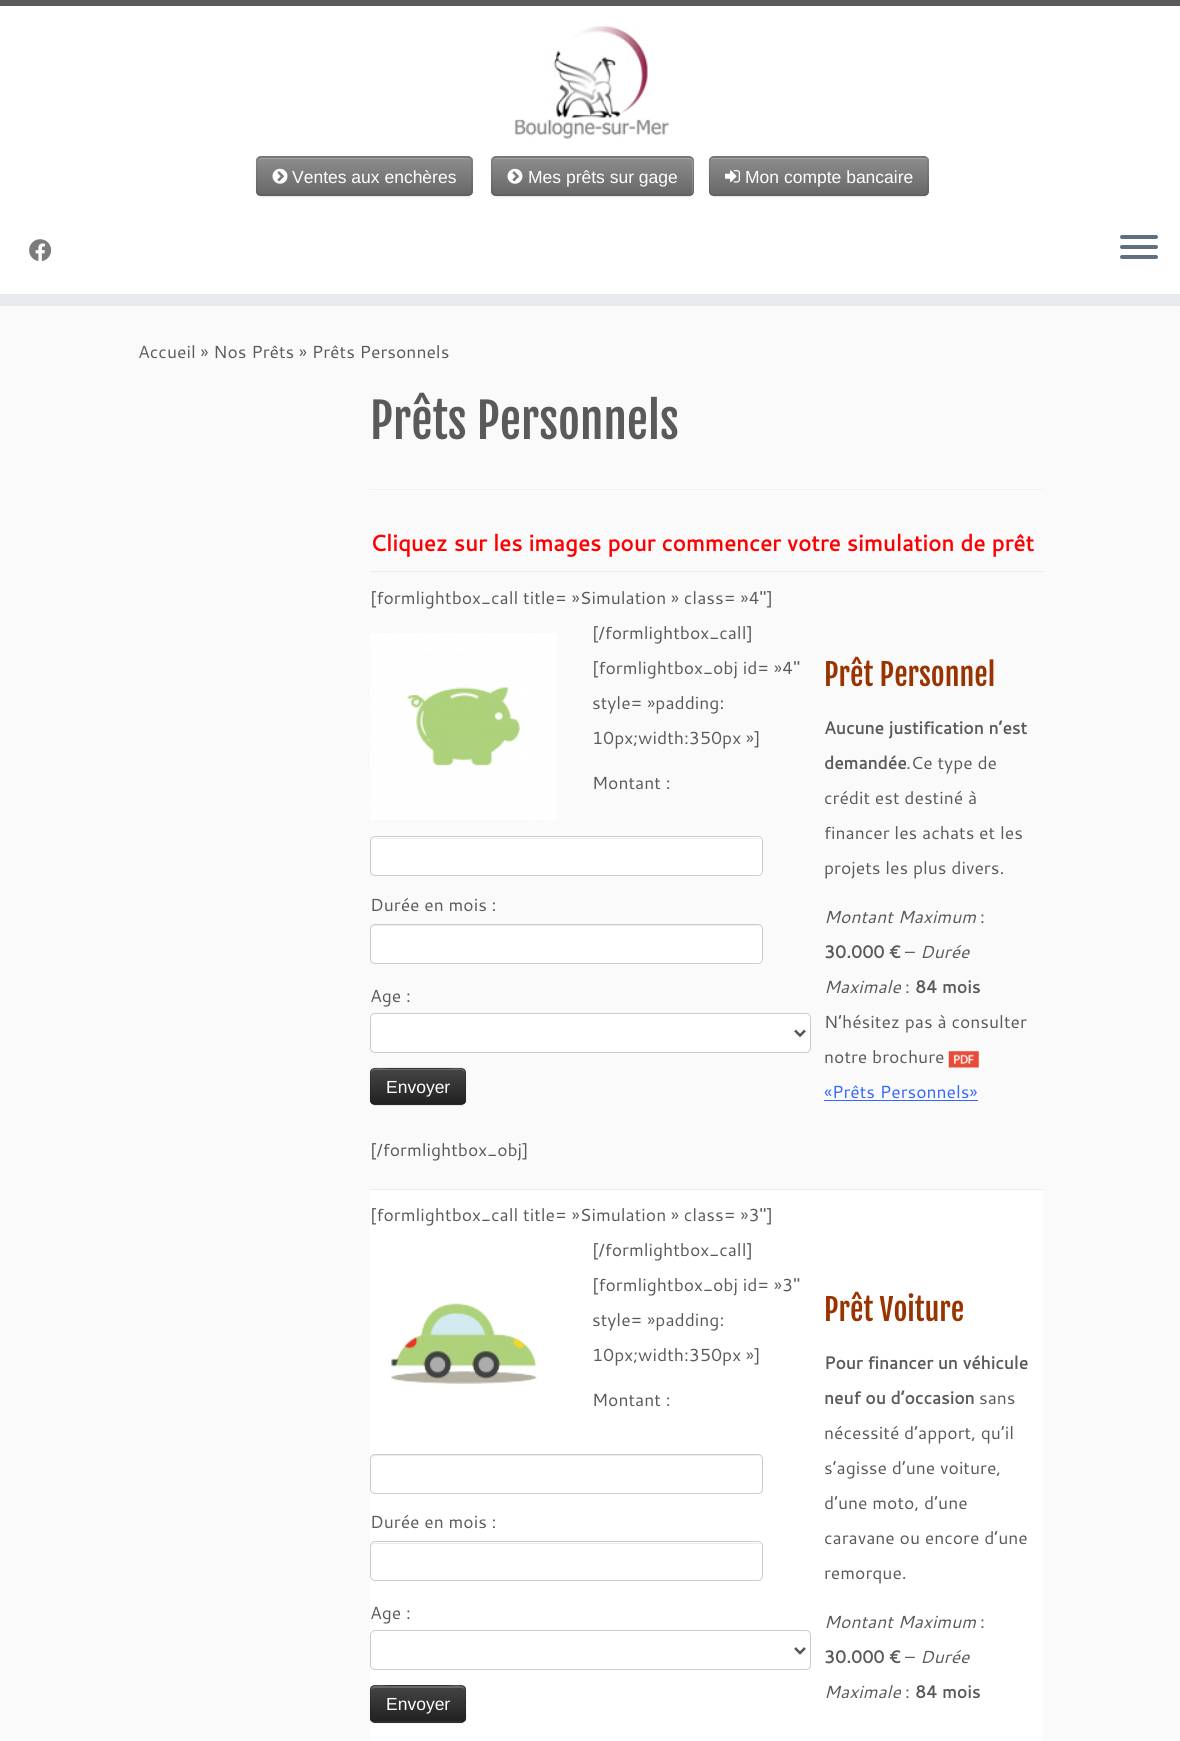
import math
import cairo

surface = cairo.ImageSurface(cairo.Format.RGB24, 1180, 1741)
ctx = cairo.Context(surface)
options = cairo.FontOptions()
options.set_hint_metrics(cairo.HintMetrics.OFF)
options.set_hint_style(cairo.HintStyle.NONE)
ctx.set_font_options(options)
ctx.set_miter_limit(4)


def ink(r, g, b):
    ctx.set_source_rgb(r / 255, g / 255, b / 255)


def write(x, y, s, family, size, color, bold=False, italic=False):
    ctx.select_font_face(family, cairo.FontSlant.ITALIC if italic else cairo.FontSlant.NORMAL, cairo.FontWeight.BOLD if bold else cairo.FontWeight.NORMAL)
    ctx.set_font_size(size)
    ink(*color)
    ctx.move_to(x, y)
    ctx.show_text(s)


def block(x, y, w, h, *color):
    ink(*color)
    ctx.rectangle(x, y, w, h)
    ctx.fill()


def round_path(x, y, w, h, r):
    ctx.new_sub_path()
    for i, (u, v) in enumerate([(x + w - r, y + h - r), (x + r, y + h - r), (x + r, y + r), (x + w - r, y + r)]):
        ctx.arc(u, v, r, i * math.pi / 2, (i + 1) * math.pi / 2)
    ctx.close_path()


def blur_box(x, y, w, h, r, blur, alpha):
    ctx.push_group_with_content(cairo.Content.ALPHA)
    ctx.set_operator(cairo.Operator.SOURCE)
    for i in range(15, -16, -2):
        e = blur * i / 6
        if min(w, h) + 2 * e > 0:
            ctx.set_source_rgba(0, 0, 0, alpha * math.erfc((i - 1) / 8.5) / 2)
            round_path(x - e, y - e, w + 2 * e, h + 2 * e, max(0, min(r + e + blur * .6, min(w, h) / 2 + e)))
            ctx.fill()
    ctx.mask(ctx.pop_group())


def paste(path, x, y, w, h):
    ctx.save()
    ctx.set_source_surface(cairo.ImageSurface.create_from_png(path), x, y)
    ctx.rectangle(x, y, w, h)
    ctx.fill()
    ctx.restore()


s1 = dict(family="Liberation Sans", size=17.5, color=(255, 255, 255))
s2 = dict(family="Cantarell", size=17.5, color=(90, 90, 90))
s3 = dict(family="Fjalla One", size=47.5, color=(90, 90, 90))
s4 = dict(family="Cantarell", size=22.5, color=(255, 0, 0), bold=True)
s5 = dict(family="Fjalla One", size=30, color=(153, 51, 0))
s6 = dict(family="Cantarell", size=17.5, color=(90, 90, 90), bold=True)
s7 = dict(family="Cantarell", size=17.5, color=(90, 90, 90), italic=True)
s8 = dict(family="Cantarell", size=17.5, color=(51, 102, 255))

ink(250, 250, 250)
ctx.paint()
block(0, 6, 1180, 288, 255, 255, 255)
block(0, 0, 1180, 6, 90, 90, 90)
block(0, 294, 1180, 12, 233, 234, 238)
paste("pic1.png", 514, 26, 155, 113)
ink(0, 0, 0)
blur_box(256, 158, 217, 40, 5, 1, 0.05)
ink(126, 126, 126)
round_path(256, 156, 217, 40, 5)
ctx.fill()
ctx.save()
round_path(256, 156, 217, 40, 5)
ctx.clip()
gradient = cairo.LinearGradient(364, 157, 364, 195)
gradient.add_color_stop_rgba(0, 0.553, 0.553, 0.553, 1)
gradient.add_color_stop_rgba(1, 0.404, 0.404, 0.404, 1)
ctx.set_source(gradient)
ctx.rectangle(256, 158, 217, 37)
ctx.fill()
ctx.restore()
ink(163, 163, 163)
ctx.new_path()
ctx.move_to(261, 159)
ctx.line_to(468, 159)
ctx.line_to(470, 160)
ctx.line_to(469, 159)
ctx.line_to(467, 158)
ctx.line_to(433, 158)
ctx.line_to(261, 158)
ctx.line_to(259, 160)
ctx.close_path()
ctx.fill()
ctx.new_path()
ctx.move_to(470.5, 194.5)
ctx.line_to(468, 195.5)
ctx.line_to(295.5, 195.5)
ctx.line_to(261, 195.5)
ctx.line_to(258, 194.5)
ctx.set_source_rgba(0, 0, 0, 0.25)
ctx.set_line_width(1.2)
ctx.stroke()
ctx.new_path()
ctx.move_to(258, 194.5)
ctx.curve_to(257.5, 193.5, 257, 192.5, 257, 191)
ctx.line_to(257, 161)
ctx.curve_to(257, 160, 257.5, 159, 258, 158)
ctx.curve_to(259, 157.5, 260, 157, 261, 157)
ctx.line_to(467.5, 157)
ctx.curve_to(468.5, 157, 470, 157.5, 470.5, 158)
ctx.curve_to(471.5, 159, 472, 160, 472, 161)
ctx.line_to(472, 191)
ctx.curve_to(472, 192.5, 471.5, 193.5, 470.5, 194.5)
ctx.set_source_rgba(0, 0, 0, 0.1)
ctx.stroke()
paste("pic2.png", 272, 168, 16, 16)
write(292, 183, "Ventes aux enchères", **s1)
ink(0, 0, 0)
blur_box(491, 158, 203, 40, 5, 1, 0.05)
ink(126, 126, 126)
round_path(491, 156, 203, 40, 5)
ctx.fill()
ctx.save()
round_path(491, 156, 203, 40, 5)
ctx.clip()
gradient = cairo.LinearGradient(593, 157, 593, 195)
gradient.add_color_stop_rgba(0, 0.553, 0.553, 0.553, 1)
gradient.add_color_stop_rgba(1, 0.404, 0.404, 0.404, 1)
ctx.set_source(gradient)
ctx.rectangle(491, 158, 203, 37)
ctx.fill()
ctx.restore()
ctx.set_source_rgba(1, 1, 1, 0.2)
ctx.new_path()
ctx.move_to(496, 159)
ctx.line_to(689, 159)
ctx.curve_to(691, 159, 692, 160, 692, 162)
ctx.line_to(692, 194)
ctx.curve_to(693, 193, 693, 192, 693, 191)
ctx.line_to(693, 162)
ctx.curve_to(693, 160, 691, 158, 689, 158)
ctx.line_to(497, 158)
ctx.curve_to(496, 158, 495, 159, 494, 159)
ctx.close_path()
ctx.fill()
ctx.new_path()
ctx.move_to(692, 194.5)
ctx.curve_to(691, 195, 690, 195.5, 689, 195.5)
ctx.line_to(496, 195.5)
ctx.curve_to(495, 195.5, 494, 195, 493, 194.5)
ctx.set_source_rgba(0, 0, 0, 0.25)
ctx.stroke()
ctx.new_path()
ctx.move_to(493, 194.5)
ctx.curve_to(492.5, 193.5, 492, 192.5, 492, 191)
ctx.line_to(492, 161)
ctx.curve_to(492, 160, 492.5, 159, 493, 158)
ctx.curve_to(494, 157.5, 495, 157, 496, 157)
ctx.line_to(689, 157)
ctx.curve_to(690, 157, 691, 157.5, 692, 158)
ctx.curve_to(692.5, 159, 693, 160, 693, 161)
ctx.line_to(693, 191)
ctx.curve_to(693, 192.5, 692.5, 193.5, 692, 194.5)
ctx.set_source_rgba(0, 0, 0, 0.1)
ctx.stroke()
paste("pic2.png", 507, 168, 16, 16)
write(528, 183, "Mes prêts sur gage", **s1)
ink(0, 0, 0)
blur_box(709, 158, 220, 40, 5, 1, 0.05)
ink(126, 126, 126)
round_path(709, 156, 220, 40, 5)
ctx.fill()
ctx.save()
round_path(709, 156, 220, 40, 5)
ctx.clip()
gradient = cairo.LinearGradient(819, 157, 819, 195)
gradient.add_color_stop_rgba(0, 0.553, 0.553, 0.553, 1)
gradient.add_color_stop_rgba(1, 0.404, 0.404, 0.404, 1)
ctx.set_source(gradient)
ctx.rectangle(709, 158, 220, 37)
ctx.fill()
ctx.restore()
ink(163, 163, 163)
ctx.new_path()
ctx.move_to(714, 159)
ctx.line_to(924, 159)
ctx.curve_to(926, 159, 928, 160, 928, 162)
ctx.curve_to(928, 160, 926, 158, 924, 158)
ctx.line_to(714, 158)
ctx.curve_to(712, 158, 710, 160, 710, 162)
ctx.curve_to(710, 160, 712, 159, 714, 159)
ctx.close_path()
ctx.fill()
ctx.new_path()
ctx.move_to(927, 194.5)
ctx.line_to(924, 195.5)
ctx.line_to(749, 195.5)
ctx.line_to(714, 195.5)
ctx.line_to(710.5, 194.5)
ctx.set_source_rgba(0, 0, 0, 0.25)
ctx.stroke()
ctx.new_path()
ctx.move_to(710.5, 194.5)
ctx.curve_to(710, 193.5, 709.5, 192.5, 709.5, 191)
ctx.line_to(709.5, 161)
ctx.curve_to(709.5, 160, 710, 159, 710.5, 158)
ctx.curve_to(711.5, 157.5, 712.5, 157, 714, 157)
ctx.line_to(924, 157)
ctx.curve_to(925, 157, 926, 157.5, 927, 158)
ctx.curve_to(927.5, 159, 928, 160, 928, 161)
ctx.line_to(928, 191)
ctx.curve_to(928, 192.5, 927.5, 193.5, 927, 194.5)
ctx.set_source_rgba(0, 0, 0, 0.1)
ctx.stroke()
paste("pic3.png", 725, 170, 15, 13)
write(745, 183, "Mon compte bancaire", **s1)
paste("pic4.png", 29, 239, 23, 22)
ink(95, 111, 129)
round_path(1120, 235, 38, 4, 2)
ctx.fill()
round_path(1120, 245, 38, 4, 2)
ctx.fill()
round_path(1120, 255, 38, 4, 2)
ctx.fill()
write(138, 358, "Accueil » Nos Prêts » Prêts Personnels", **s2)
write(370, 439, "Prêts Personnels", **s3)
block(370, 489, 673, 1, 238, 238, 238)
block(370, 490, 673, 1, 255, 255, 255)
write(370, 551, "Cliquez sur les images pour commencer votre simulation de prêt", **s4)
write(370, 604, "[formlightbox_call title= »Simulation » class= »4″]", **s2)
paste("pic5.png", 370, 633, 187, 187)
write(592, 639, "[/formlightbox_call]", **s2)
write(592, 674, "[formlightbox_obj id= »4″", **s2)
write(592, 709, "style= »padding:", **s2)
write(592, 744, "10px;width:350px »]", **s2)
write(592, 789, "Montant :", **s2)
ink(255, 255, 255)
round_path(370, 836, 393, 40, 5)
ctx.fill()
ink(236, 236, 236)
ctx.new_path()
ctx.move_to(375, 839)
ctx.line_to(758, 839)
ctx.line_to(760, 840)
ctx.curve_to(760, 839, 758, 838, 757, 838)
ctx.line_to(375, 838)
ctx.curve_to(373, 838, 371, 840, 371, 842)
ctx.curve_to(371, 840, 373, 839, 375, 839)
ctx.close_path()
ctx.fill()
round_path(370.5, 836.5, 392, 39, 4.5)
ink(204, 204, 204)
ctx.set_line_width(1)
ctx.stroke()
write(370, 911, "Durée en mois :", **s2)
ink(255, 255, 255)
round_path(370, 924, 393, 40, 5)
ctx.fill()
ink(236, 236, 236)
ctx.new_path()
ctx.move_to(375, 926)
ctx.line_to(758, 926)
ctx.curve_to(760, 926, 761, 928, 761, 930)
ctx.curve_to(761, 927, 760, 925, 757, 925)
ctx.line_to(375, 925)
ctx.curve_to(372, 925, 371, 927, 371, 930)
ctx.curve_to(371, 928, 373, 926, 375, 926)
ctx.close_path()
ctx.fill()
round_path(370.5, 924.5, 392, 39, 4.5)
ink(204, 204, 204)
ctx.stroke()
write(370, 1002, "Age :", **s2)
ink(255, 255, 255)
round_path(370.5, 1013.5, 440, 39, 4.5)
ctx.fill_preserve()
ink(204, 204, 204)
ctx.stroke()
ctx.new_path()
ctx.move_to(795, 1030.5)
ctx.line_to(800, 1035.5)
ctx.line_to(805, 1030.5)
ink(85, 85, 85)
ctx.set_line_width(2.5)
ctx.stroke()
ink(0, 0, 0)
blur_box(370, 1069, 96, 37, 5, 1, 0.05)
ink(54, 54, 54)
round_path(370, 1068, 96, 37, 5)
ctx.fill()
ctx.save()
round_path(370, 1068, 96, 37, 5)
ctx.clip()
gradient = cairo.LinearGradient(418, 1069, 418, 1104)
gradient.add_color_stop_rgba(0, 0.267, 0.267, 0.267, 1)
gradient.add_color_stop_rgba(1, 0.133, 0.133, 0.133, 1)
ctx.set_source(gradient)
ctx.rectangle(370, 1069, 96, 35)
ctx.fill()
ctx.restore()
ctx.set_source_rgba(1, 1, 1, 0.2)
ctx.new_path()
ctx.move_to(375, 1070)
ctx.line_to(461, 1070)
ctx.curve_to(463, 1070, 465, 1072, 465, 1074)
ctx.curve_to(465, 1065, 451, 1069, 447, 1069)
ctx.line_to(389, 1069)
ctx.curve_to(385, 1069, 371, 1065, 371, 1074)
ctx.curve_to(371, 1072, 373, 1070, 375, 1070)
ctx.close_path()
ctx.fill()
ctx.new_path()
ctx.move_to(464.5, 1103)
ctx.line_to(461.5, 1104.5)
ctx.line_to(374.5, 1104.5)
ctx.line_to(372, 1103)
ctx.set_source_rgba(0, 0, 0, 0.25)
ctx.set_line_width(1.2)
ctx.stroke()
ctx.new_path()
ctx.move_to(372, 1103)
ctx.curve_to(370, 1101, 370.5, 1098, 370.5, 1095.5)
ctx.line_to(370.5, 1086)
ctx.curve_to(370.5, 1065.5, 367.5, 1068, 389.5, 1068)
ctx.line_to(447, 1068)
ctx.curve_to(468.5, 1068, 465.5, 1065.5, 465.5, 1086)
ctx.line_to(465.5, 1095.5)
ctx.curve_to(465.5, 1098, 466.5, 1101, 464.5, 1103)
ctx.set_source_rgba(0, 0, 0, 0.1)
ctx.stroke()
write(386, 1093, "Envoyer", **s1)
write(370, 1156, "[/formlightbox_obj]", **s2)
block(370, 571, 674, 1, 237, 237, 237)
write(824, 686, "Prêt Personnel", **s5)
write(824, 734, "Aucune justification n’est", **s6)
write(824, 769, "demandée", **s6)
write(906, 769, ".Ce type de", **s2)
write(824, 804, "crédit est destiné à", **s2)
write(824, 839, "financer les achats et les", **s2)
write(824, 874, "projets les plus divers.", **s2)
write(824, 923, "Montant Maximum", **s7)
write(980, 923, ":", **s2)
write(824, 958, "30.000 €", **s6)
write(905, 958, "–", **s2)
write(920, 958, "Durée", **s7)
write(824, 993, "Maximale", **s7)
write(905, 993, ":", **s2)
write(915, 993, "84 mois", **s6)
write(824, 1028, "N’hésitez pas à consulter", **s2)
write(824, 1063, "notre brochure", **s2)
paste("pic6.png", 948, 1051, 31, 17)
write(824, 1098, "«Prêts Personnels»", **s8)
block(824, 1100, 154, 1, 51, 102, 255)
block(370, 1190, 673, 551, 255, 255, 255)
write(370, 1221, "[formlightbox_call title= »Simulation » class= »3″]", **s2)
write(592, 1256, "[/formlightbox_call]", **s2)
write(592, 1291, "[formlightbox_obj id= »3″", **s2)
paste("pic7.png", 391, 1303, 146, 81)
write(592, 1326, "style= »padding:", **s2)
write(592, 1361, "10px;width:350px »]", **s2)
write(592, 1406, "Montant :", **s2)
ink(236, 236, 236)
ctx.new_path()
ctx.move_to(375, 1456)
ctx.line_to(758, 1456)
ctx.curve_to(760, 1456, 761, 1458, 761, 1460)
ctx.curve_to(761, 1457, 760, 1455, 757, 1455)
ctx.line_to(375, 1455)
ctx.curve_to(372, 1455, 371, 1457, 371, 1460)
ctx.curve_to(371, 1458, 373, 1456, 375, 1456)
ctx.close_path()
ctx.fill()
round_path(370.5, 1454.5, 392, 39, 4.5)
ink(204, 204, 204)
ctx.set_line_width(1)
ctx.stroke()
write(370, 1528, "Durée en mois :", **s2)
ink(236, 236, 236)
ctx.new_path()
ctx.move_to(375, 1544)
ctx.line_to(758, 1544)
ctx.curve_to(760, 1544, 761, 1545, 761, 1548)
ctx.curve_to(761, 1545, 760, 1543, 757, 1543)
ctx.line_to(375, 1543)
ctx.curve_to(372, 1543, 371, 1545, 371, 1548)
ctx.curve_to(371, 1545, 373, 1544, 375, 1544)
ctx.close_path()
ctx.fill()
round_path(370.5, 1541.5, 392, 39, 4.5)
ink(204, 204, 204)
ctx.stroke()
write(370, 1619, "Age :", **s2)
round_path(370.5, 1630.5, 440, 39, 4.5)
ink(204, 204, 204)
ctx.stroke()
ctx.new_path()
ctx.move_to(795, 1648)
ctx.line_to(800, 1653)
ctx.line_to(805, 1648)
ink(85, 85, 85)
ctx.set_line_width(2.5)
ctx.stroke()
ink(0, 0, 0)
blur_box(370, 1686, 96, 38, 5, 1, 0.05)
ink(54, 54, 54)
round_path(370, 1685, 96, 38, 5)
ctx.fill()
ctx.save()
round_path(370, 1685, 96, 38, 5)
ctx.clip()
gradient = cairo.LinearGradient(418, 1686, 418, 1721)
gradient.add_color_stop_rgba(0, 0.267, 0.267, 0.267, 1)
gradient.add_color_stop_rgba(1, 0.133, 0.133, 0.133, 1)
ctx.set_source(gradient)
ctx.rectangle(370, 1686, 96, 35)
ctx.fill()
ctx.restore()
ctx.set_source_rgba(1, 1, 1, 0.2)
ctx.new_path()
ctx.move_to(375, 1688)
ctx.line_to(461, 1688)
ctx.curve_to(463, 1688, 465, 1689, 465, 1691)
ctx.curve_to(465, 1682, 451, 1686, 447, 1686)
ctx.line_to(389, 1686)
ctx.curve_to(385, 1686, 371, 1682, 371, 1691)
ctx.curve_to(371, 1689, 373, 1688, 375, 1688)
ctx.close_path()
ctx.fill()
ctx.new_path()
ctx.move_to(464.5, 1720.5)
ctx.line_to(461.5, 1722)
ctx.line_to(374.5, 1722)
ctx.line_to(372, 1720.5)
ctx.set_source_rgba(0, 0, 0, 0.25)
ctx.set_line_width(1.2)
ctx.stroke()
ctx.new_path()
ctx.move_to(372, 1720.5)
ctx.curve_to(370, 1718.5, 370.5, 1715.5, 370.5, 1713)
ctx.line_to(370.5, 1704)
ctx.curve_to(370.5, 1683, 367.5, 1685.5, 389.5, 1685.5)
ctx.line_to(447, 1685.5)
ctx.curve_to(468.5, 1685.5, 465.5, 1683, 465.5, 1704)
ctx.line_to(465.5, 1713)
ctx.curve_to(465.5, 1715.5, 466.5, 1718.5, 464.5, 1720.5)
ctx.set_source_rgba(0, 0, 0, 0.1)
ctx.stroke()
write(386, 1710, "Envoyer", **s1)
block(370, 1189, 674, 1, 237, 237, 237)
write(824, 1321, "Prêt Voiture", **s5)
write(824, 1369, "Pour financer un véhicule", **s6)
write(824, 1404, "neuf ou d’occasion", **s6)
write(979, 1404, "sans", **s2)
write(824, 1439, "nécessité d’apport, qu’il", **s2)
write(824, 1474, "s’agisse d’une voiture,", **s2)
write(824, 1509, "d’une moto, d’une", **s2)
write(824, 1544, "caravane ou encore d’une", **s2)
write(824, 1579, "remorque.", **s2)
write(824, 1628, "Montant Maximum", **s7)
write(980, 1628, ":", **s2)
write(824, 1663, "30.000 €", **s6)
write(905, 1663, "–", **s2)
write(920, 1663, "Durée", **s7)
write(824, 1698, "Maximale", **s7)
write(905, 1698, ":", **s2)
write(915, 1698, "84 mois", **s6)
surface.write_to_png("screenshot.png")
